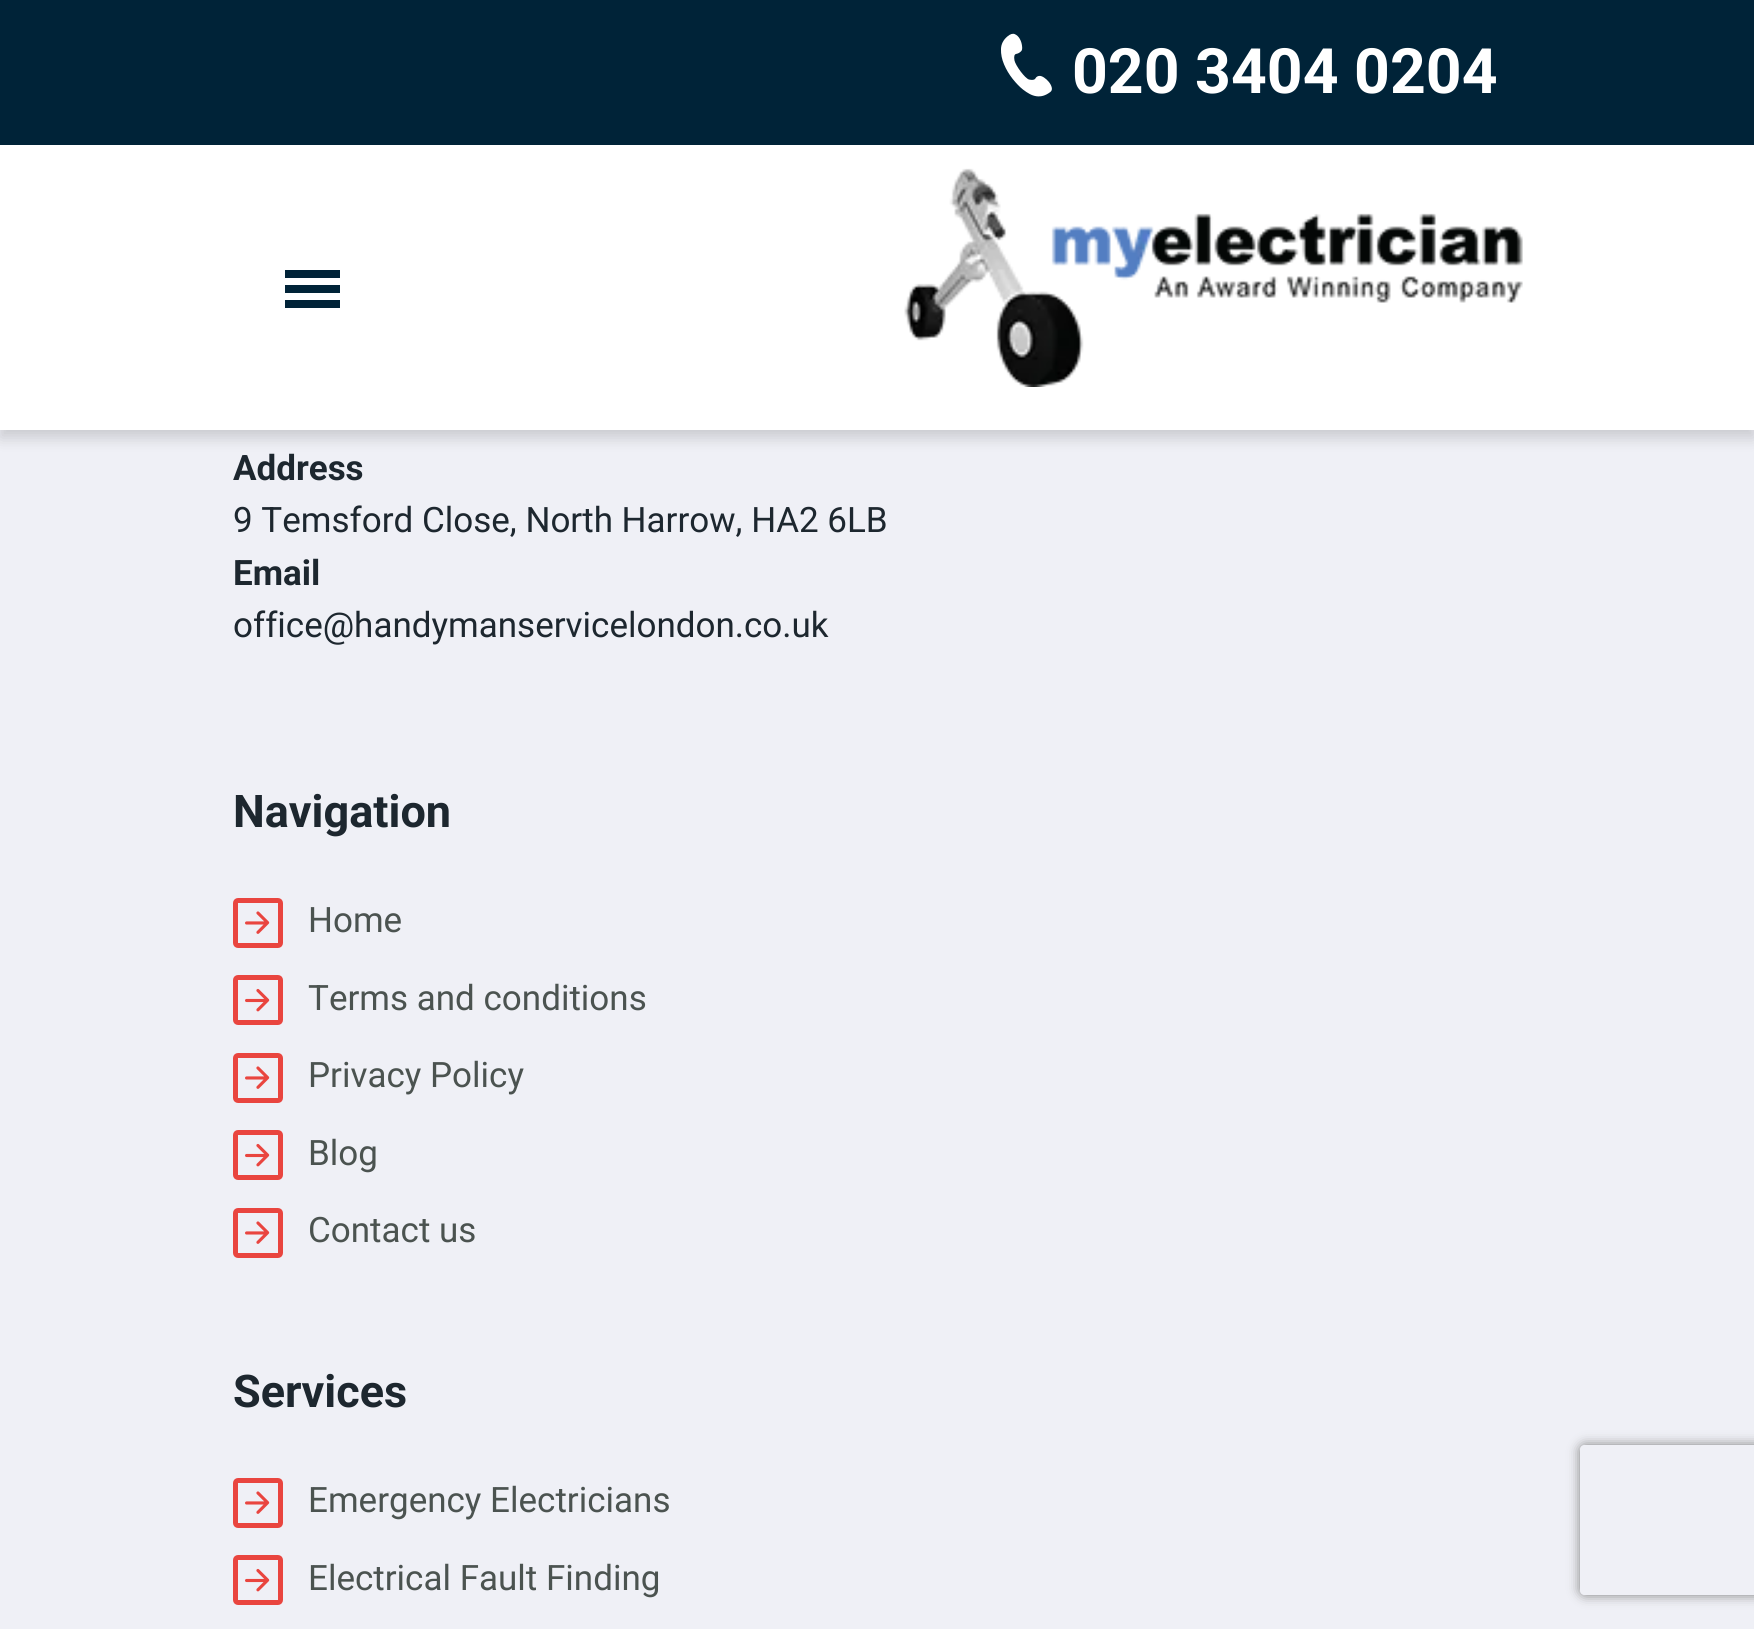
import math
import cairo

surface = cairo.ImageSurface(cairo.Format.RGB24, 1754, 1629)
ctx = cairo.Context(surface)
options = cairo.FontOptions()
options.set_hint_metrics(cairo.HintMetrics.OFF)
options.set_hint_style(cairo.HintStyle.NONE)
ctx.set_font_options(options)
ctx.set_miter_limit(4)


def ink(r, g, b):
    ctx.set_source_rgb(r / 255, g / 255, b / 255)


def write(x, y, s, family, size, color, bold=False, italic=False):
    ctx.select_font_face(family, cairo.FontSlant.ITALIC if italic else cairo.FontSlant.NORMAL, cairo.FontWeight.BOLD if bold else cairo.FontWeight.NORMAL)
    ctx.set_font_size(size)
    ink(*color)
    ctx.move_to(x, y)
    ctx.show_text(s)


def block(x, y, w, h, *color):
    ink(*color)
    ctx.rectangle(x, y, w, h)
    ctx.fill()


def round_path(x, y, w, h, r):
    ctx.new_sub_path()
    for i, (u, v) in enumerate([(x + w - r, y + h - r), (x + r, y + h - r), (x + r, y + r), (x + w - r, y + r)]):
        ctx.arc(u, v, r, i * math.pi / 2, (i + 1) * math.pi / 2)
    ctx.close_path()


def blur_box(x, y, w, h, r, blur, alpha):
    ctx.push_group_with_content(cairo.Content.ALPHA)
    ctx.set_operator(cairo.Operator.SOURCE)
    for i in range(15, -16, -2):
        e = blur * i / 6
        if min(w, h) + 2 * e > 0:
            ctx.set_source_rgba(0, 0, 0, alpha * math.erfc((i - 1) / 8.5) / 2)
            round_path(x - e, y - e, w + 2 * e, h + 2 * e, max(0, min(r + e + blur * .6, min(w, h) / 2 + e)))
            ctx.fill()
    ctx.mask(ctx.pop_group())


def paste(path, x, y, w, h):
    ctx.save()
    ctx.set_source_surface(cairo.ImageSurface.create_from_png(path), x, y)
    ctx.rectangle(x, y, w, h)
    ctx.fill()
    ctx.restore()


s1 = dict(family="Roboto", size=62.5, color=(255, 255, 255), bold=True)
s2 = dict(family="Roboto", size=35, color=(29, 39, 47), bold=True)
s3 = dict(family="Roboto", size=35, color=(29, 39, 47))
s4 = dict(family="Roboto", size=45, color=(29, 39, 47), bold=True)
s5 = dict(family="Roboto", size=35, color=(75, 83, 80))

ink(239, 240, 246)
ctx.paint()
ink(0, 0, 0)
blur_box(0, 8, 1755, 430, 0, 7.5, 0.16)
block(0, 145, 1754, 285, 255, 255, 255)
block(0, 0, 1754, 145, 0, 35, 56)
paste("pic1.png", 1001, 33, 51, 64)
write(1072, 93, "020 3404 0204", **s1)
block(285, 270, 55, 8, 0, 35, 56)
block(285, 285, 55, 8, 0, 35, 56)
block(285, 300, 55, 8, 0, 35, 56)
paste("pic2.png", 904, 168, 619, 219)
write(233, 480, "Address", **s2)
write(233, 532, "9 Temsford Close, North Harrow, HA2 6LB", **s3)
write(233, 585, "Email", **s2)
write(233, 637, "office@handymanservicelondon.co.uk", **s3)
write(233, 827, "Navigation", **s4)
round_path(235.5, 900.5, 45, 45, 2.5)
ink(233, 69, 63)
ctx.set_line_width(5)
ctx.stroke()
paste("pic3.png", 245, 911, 25, 23)
write(308, 932, "Home", **s5)
round_path(235.5, 977.5, 45, 45, 2.5)
ink(233, 69, 63)
ctx.stroke()
paste("pic4.png", 245, 988, 25, 24)
write(308, 1010, "Terms and conditions", **s5)
round_path(235.5, 1055.5, 45, 45, 2.5)
ink(233, 69, 63)
ctx.stroke()
paste("pic3.png", 245, 1066, 25, 23)
write(308, 1087, "Privacy Policy", **s5)
round_path(235.5, 1132.5, 45, 45, 2.5)
ink(233, 69, 63)
ctx.stroke()
paste("pic4.png", 245, 1143, 25, 24)
write(308, 1165, "Blog", **s5)
round_path(235.5, 1210.5, 45, 45, 2.5)
ink(233, 69, 63)
ctx.stroke()
paste("pic3.png", 245, 1221, 25, 23)
write(308, 1242, "Contact us", **s5)
write(233, 1407, "Services", **s4)
round_path(235.5, 1480.5, 45, 45, 2.5)
ink(233, 69, 63)
ctx.stroke()
paste("pic3.png", 245, 1491, 25, 23)
write(308, 1512, "Emergency Electricians", **s5)
round_path(235.5, 1557.5, 45, 45, 2.5)
ink(233, 69, 63)
ctx.stroke()
paste("pic4.png", 245, 1568, 25, 24)
write(308, 1590, "Electrical Fault Finding", **s5)
ctx.save()
ctx.set_fill_rule(cairo.FillRule.EVEN_ODD)
ctx.new_path()
ctx.move_to(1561, 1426)
ctx.line_to(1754, 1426)
ctx.line_to(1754, 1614)
ctx.line_to(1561, 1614)
ctx.close_path()
ctx.move_to(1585, 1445)
ctx.line_to(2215, 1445)
ctx.curve_to(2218, 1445, 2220, 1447, 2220, 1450)
ctx.line_to(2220, 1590)
ctx.curve_to(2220, 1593, 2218, 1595, 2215, 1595)
ctx.line_to(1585, 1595)
ctx.curve_to(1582, 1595, 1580, 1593, 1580, 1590)
ctx.line_to(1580, 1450)
ctx.curve_to(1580, 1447, 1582, 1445, 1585, 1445)
ctx.close_path()
ctx.clip()
ink(128, 128, 128)
blur_box(1580, 1445, 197, 150, 5, 6, 1)
ctx.restore()
surface.write_to_png("screenshot.png")
